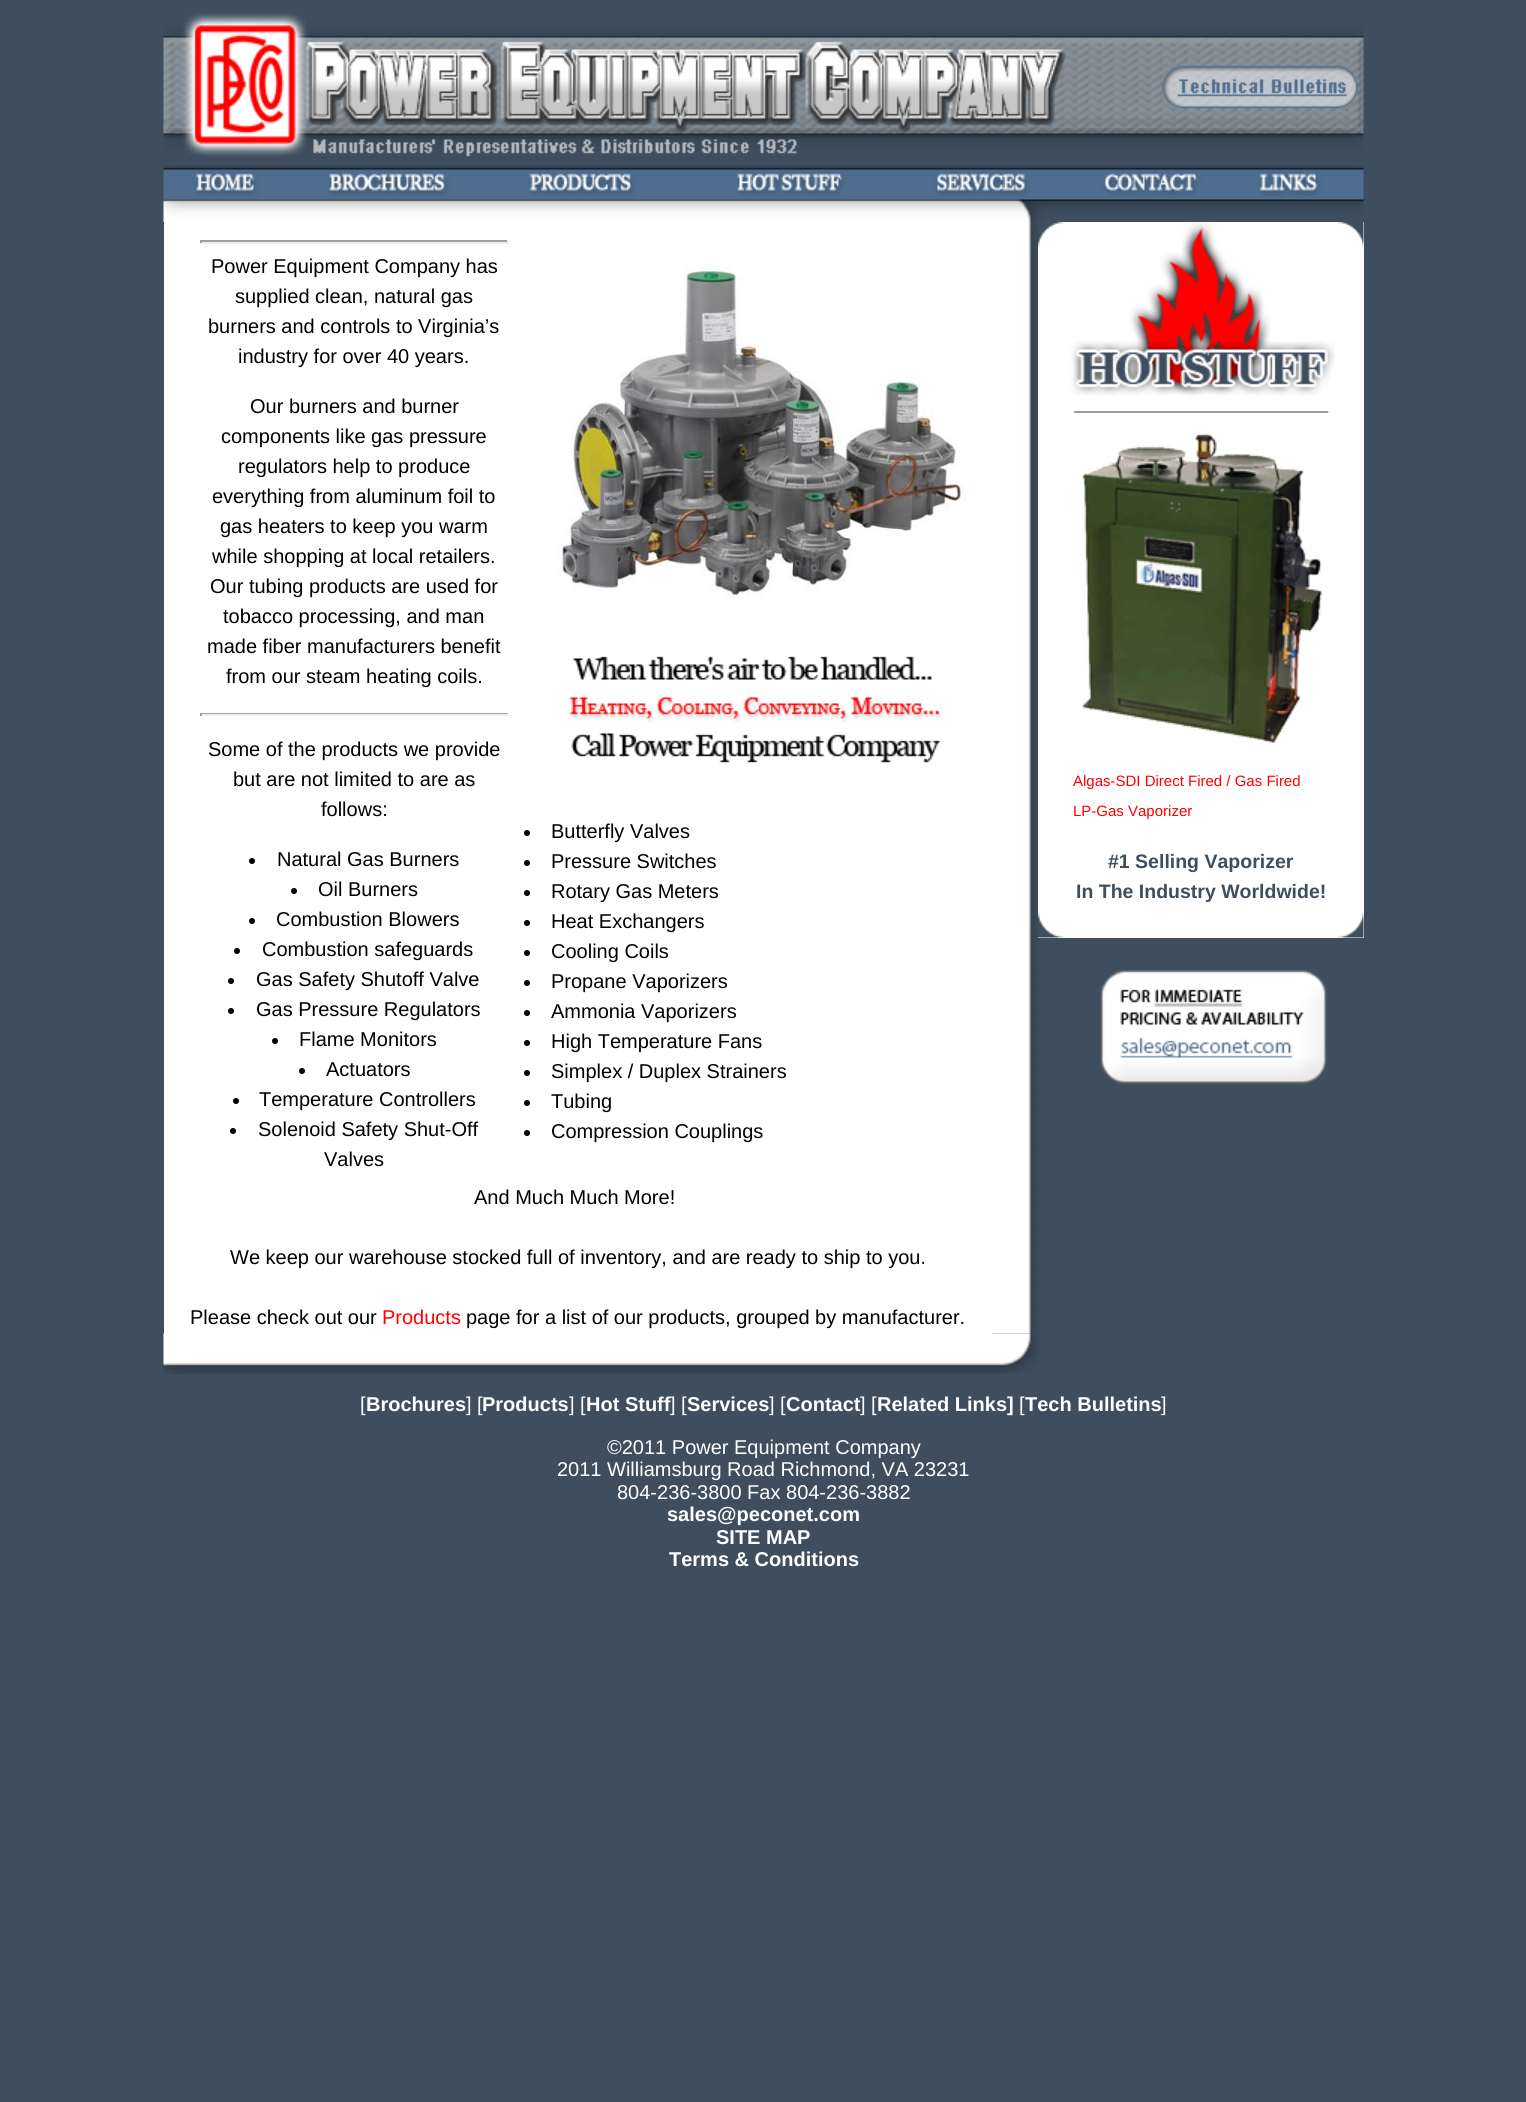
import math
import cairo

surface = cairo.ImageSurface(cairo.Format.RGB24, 1526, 2102)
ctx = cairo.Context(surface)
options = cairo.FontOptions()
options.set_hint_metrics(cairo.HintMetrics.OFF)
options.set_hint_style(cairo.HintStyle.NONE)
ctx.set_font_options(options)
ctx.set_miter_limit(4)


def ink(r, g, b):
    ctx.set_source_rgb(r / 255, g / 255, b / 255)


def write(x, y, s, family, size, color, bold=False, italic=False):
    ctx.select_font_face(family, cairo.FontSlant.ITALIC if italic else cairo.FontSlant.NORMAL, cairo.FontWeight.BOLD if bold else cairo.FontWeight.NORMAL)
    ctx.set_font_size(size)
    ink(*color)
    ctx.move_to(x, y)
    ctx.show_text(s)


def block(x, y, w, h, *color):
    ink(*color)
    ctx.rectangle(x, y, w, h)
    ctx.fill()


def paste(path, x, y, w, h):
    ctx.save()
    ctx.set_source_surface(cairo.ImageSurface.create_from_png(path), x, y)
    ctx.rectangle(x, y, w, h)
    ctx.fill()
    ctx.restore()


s1 = dict(family="Liberation Sans", size=20, color=(0, 0, 0))
s2 = dict(family="Liberation Sans", size=20, color=(255, 0, 0))
s3 = dict(family="Liberation Sans", size=15, color=(255, 0, 0))
s4 = dict(family="Liberation Sans", size=19.5, color=(62, 78, 95), bold=True)
s5 = dict(family="Liberation Sans", size=20, color=(255, 255, 255))
s6 = dict(family="Liberation Sans", size=20, color=(255, 255, 255), bold=True)

ink(62, 78, 95)
ctx.paint()
paste("pic1.png", 163, 13, 1201, 144)
paste("pic2.png", 163, 165, 1201, 57)
block(164, 222, 828, 1112, 255, 255, 255)
block(200, 240, 309, 2, 159, 159, 159)
block(507, 240, 2, 3, 238, 238, 238)
block(200, 242, 309, 2, 238, 238, 238)
block(200, 240, 2, 3, 159, 159, 159)
write(211, 273, "Power Equipment Company has", **s1)
write(235, 303, "supplied clean, natural gas", **s1)
write(208, 333, "burners and controls to Virginia’s", **s1)
write(238, 363, "industry for over 40 years.", **s1)
write(250, 413, "Our burners and burner", **s1)
write(221, 443, "components like gas pressure", **s1)
write(238, 473, "regulators help to produce", **s1)
write(212, 503, "everything from aluminum foil to", **s1)
write(220, 533, "gas heaters to keep you warm", **s1)
write(212, 563, "while shopping at local retailers.", **s1)
write(210, 593, "Our tubing products are used for", **s1)
write(223, 623, "tobacco processing, and man", **s1)
write(207, 653, "made fiber manufacturers benefit", **s1)
write(226, 683, "from our steam heating coils.", **s1)
block(200, 713, 309, 1, 159, 159, 159)
block(507, 713, 2, 3, 238, 238, 238)
block(200, 714, 309, 2, 238, 238, 238)
block(200, 713, 2, 3, 159, 159, 159)
write(208, 756, "Some of the products we provide", **s1)
write(233, 786, "but are not limited to are as", **s1)
write(321, 816, "follows:", **s1)
ctx.new_path()
ctx.arc(252, 861, 3, 0, 2 * math.pi)
ctx.fill()
write(277, 866, "Natural Gas Burners", **s1)
ctx.new_path()
ctx.arc(294, 891, 3, 0, 2 * math.pi)
ctx.fill()
write(318, 896, "Oil Burners", **s1)
ctx.new_path()
ctx.arc(252, 921, 3, 0, 2 * math.pi)
ctx.fill()
write(276, 926, "Combustion Blowers", **s1)
ctx.new_path()
ctx.arc(237, 951, 3, 0, 2 * math.pi)
ctx.fill()
write(262, 956, "Combustion safeguards", **s1)
ctx.new_path()
ctx.arc(231, 981, 3, 0, 2 * math.pi)
ctx.fill()
write(256, 986, "Gas Safety Shutoff Valve", **s1)
ctx.new_path()
ctx.arc(231, 1011, 3, 0, 2 * math.pi)
ctx.fill()
write(256, 1016, "Gas Pressure Regulators", **s1)
ctx.new_path()
ctx.arc(275, 1041, 3, 0, 2 * math.pi)
ctx.fill()
write(299, 1046, "Flame Monitors", **s1)
ctx.new_path()
ctx.arc(302, 1071, 3, 0, 2 * math.pi)
ctx.fill()
write(326, 1076, "Actuators", **s1)
ctx.new_path()
ctx.arc(236, 1101, 3, 0, 2 * math.pi)
ctx.fill()
write(259, 1106, "Temperature Controllers", **s1)
ctx.new_path()
ctx.arc(233, 1131, 3, 0, 2 * math.pi)
ctx.fill()
write(258, 1136, "Solenoid Safety Shut-Off", **s1)
write(324, 1166, "Valves", **s1)
paste("pic3.png", 556, 263, 410, 335)
paste("pic4.png", 569, 656, 373, 107)
ctx.arc(527, 833, 3, 0, 2 * math.pi)
ctx.fill()
write(551, 838, "Butterfly Valves", **s1)
ctx.new_path()
ctx.arc(527, 863, 3, 0, 2 * math.pi)
ctx.fill()
write(551, 868, "Pressure Switches", **s1)
ctx.new_path()
ctx.arc(527, 893, 3, 0, 2 * math.pi)
ctx.fill()
write(551, 898, "Rotary Gas Meters", **s1)
ctx.new_path()
ctx.arc(527, 923, 3, 0, 2 * math.pi)
ctx.fill()
write(551, 928, "Heat Exchangers", **s1)
ctx.new_path()
ctx.arc(527, 953, 3, 0, 2 * math.pi)
ctx.fill()
write(551, 958, "Cooling Coils", **s1)
ctx.new_path()
ctx.arc(527, 983, 3, 0, 2 * math.pi)
ctx.fill()
write(551, 988, "Propane Vaporizers", **s1)
ctx.new_path()
ctx.arc(527, 1013, 3, 0, 2 * math.pi)
ctx.fill()
write(551, 1018, "Ammonia Vaporizers", **s1)
ctx.new_path()
ctx.arc(527, 1043, 3, 0, 2 * math.pi)
ctx.fill()
write(551, 1048, "High Temperature Fans", **s1)
ctx.new_path()
ctx.arc(527, 1073, 3, 0, 2 * math.pi)
ctx.fill()
write(551, 1078, "Simplex / Duplex Strainers", **s1)
ctx.new_path()
ctx.arc(527, 1103, 3, 0, 2 * math.pi)
ctx.fill()
write(551, 1108, "Tubing", **s1)
ctx.new_path()
ctx.arc(527, 1133, 3, 0, 2 * math.pi)
ctx.fill()
write(551, 1138, "Compression Couplings", **s1)
write(474, 1204, "And Much Much More!", **s1)
write(230, 1264, "We keep our warehouse stocked full of inventory, and are ready to ship to you.", **s1)
write(190, 1324, "Please check out our", **s1)
write(382, 1324, "Products", **s2)
write(466, 1324, "page for a list of our products, grouped by manufacturer.", **s1)
paste("pic5.png", 992, 222, 48, 1112)
block(1038, 222, 326, 716, 255, 255, 255)
paste("pic6.png", 1038, 222, 26, 27)
paste("pic7.png", 1063, 222, 272, 174)
paste("pic8.png", 1338, 222, 26, 27)
block(1074, 411, 255, 2, 159, 159, 159)
block(1328, 411, 2, 2, 238, 238, 238)
paste("pic9.png", 1081, 433, 241, 310)
write(1073, 786, "Algas-SDI Direct Fired / Gas Fired", **s3)
write(1073, 816, "LP-Gas Vaporizer", **s3)
write(1108, 868, "#1 Selling Vaporizer", **s4)
write(1076, 898, "In The Industry Worldwide!", **s4)
paste("pic10.png", 1038, 912, 26, 26)
paste("pic11.png", 1338, 912, 26, 26)
paste("pic12.png", 1100, 970, 227, 114)
paste("pic13.png", 163, 1333, 877, 41)
write(360, 1411, "[", **s5)
write(366, 1411, "Brochures", **s6)
write(466, 1411, "] [", **s5)
write(482, 1411, "Products", **s6)
write(569, 1411, "] [", **s5)
write(586, 1411, "Hot Stuff", **s6)
write(670, 1411, "] [", **s5)
write(687, 1411, "Services", **s6)
write(769, 1411, "] [", **s5)
write(786, 1411, "Contact", **s6)
write(860, 1411, "] [", **s5)
write(877, 1411, "Related Links]", **s6)
write(1019, 1411, "[", **s5)
write(1025, 1411, "Tech Bulletins", **s6)
write(1161, 1411, "]", **s5)
write(607, 1454, "©2011 Power Equipment Company", **s5)
write(557, 1476, "2011 Williamsburg Road Richmond, VA 23231", **s5)
write(617, 1499, "804-236-3800 Fax 804-236-3882", **s5)
write(667, 1521, "sales@peconet.com", **s6)
write(716, 1544, "SITE MAP", **s6)
write(669, 1566, "Terms & Conditions", **s6)
surface.write_to_png("screenshot.png")
